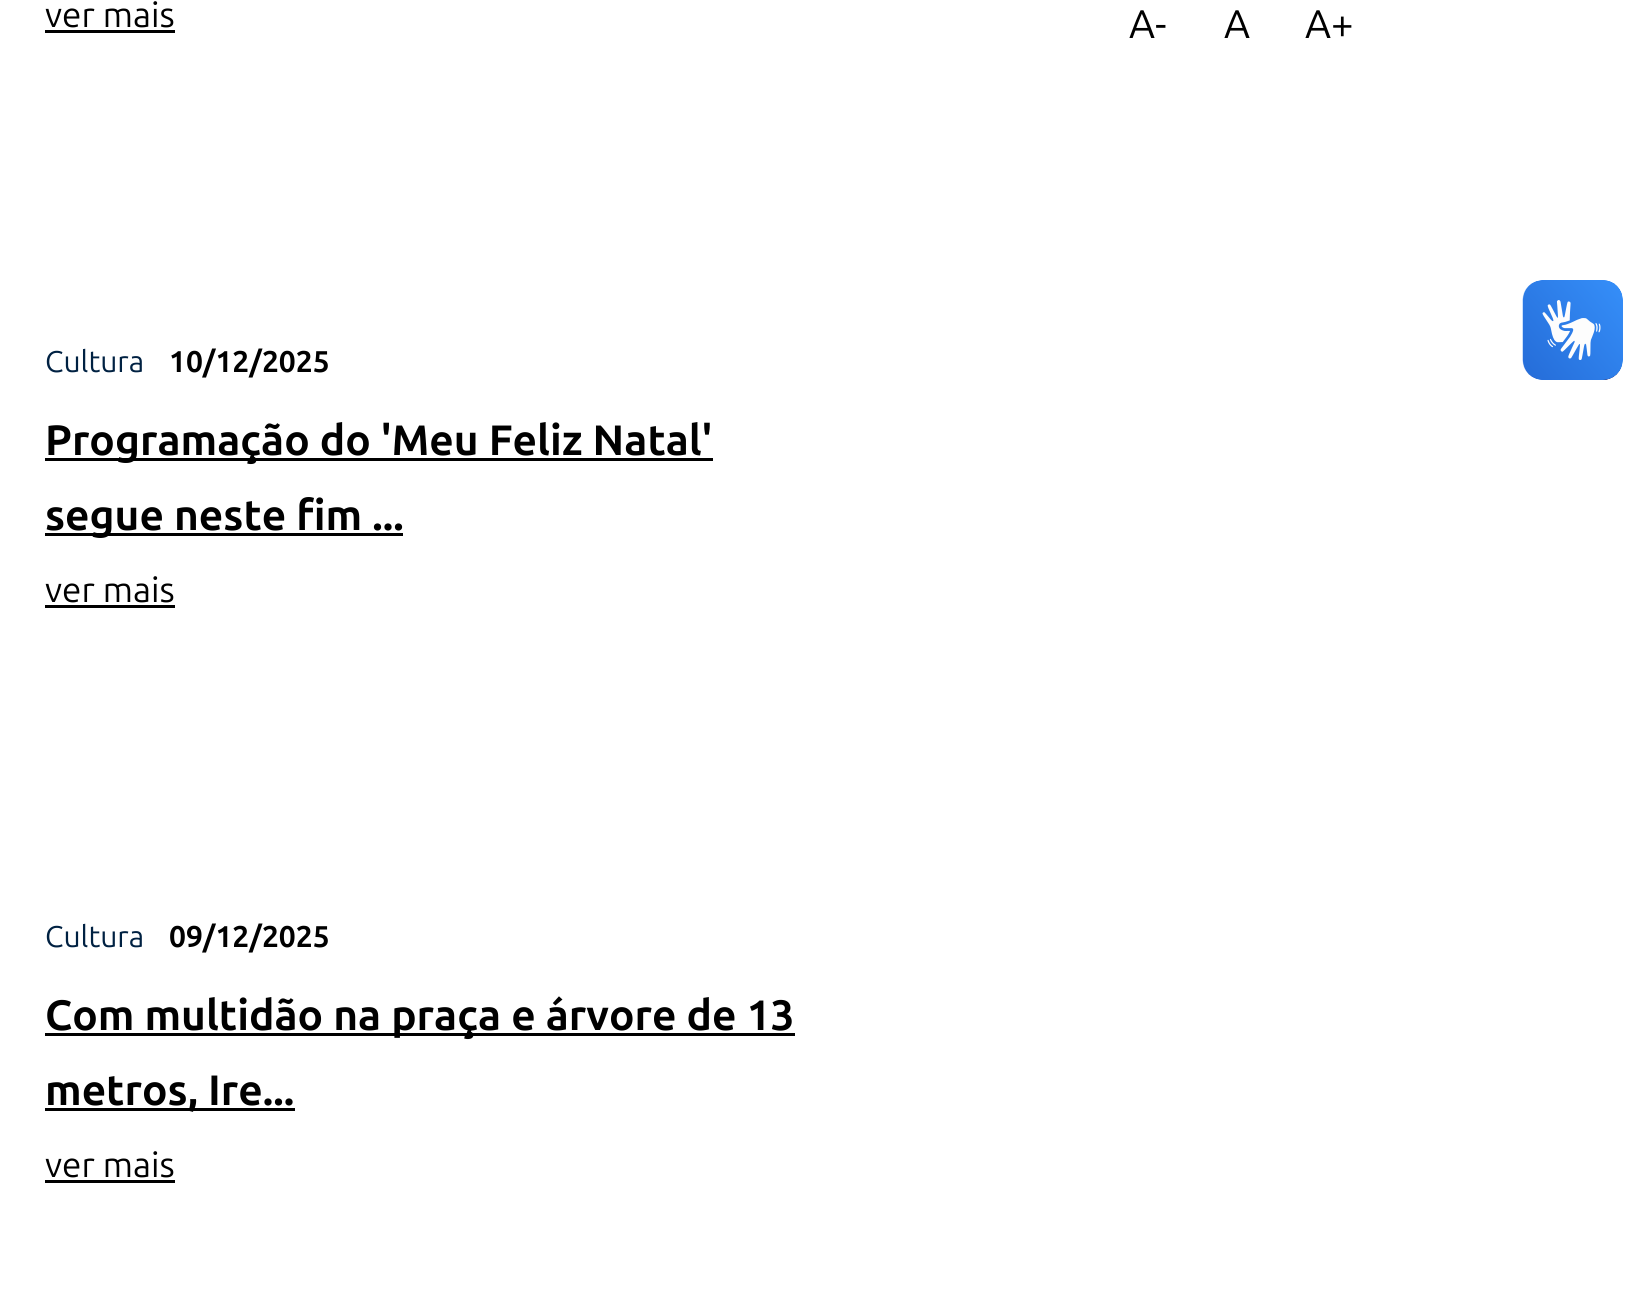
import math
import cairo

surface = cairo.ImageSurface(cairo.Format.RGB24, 1625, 1316)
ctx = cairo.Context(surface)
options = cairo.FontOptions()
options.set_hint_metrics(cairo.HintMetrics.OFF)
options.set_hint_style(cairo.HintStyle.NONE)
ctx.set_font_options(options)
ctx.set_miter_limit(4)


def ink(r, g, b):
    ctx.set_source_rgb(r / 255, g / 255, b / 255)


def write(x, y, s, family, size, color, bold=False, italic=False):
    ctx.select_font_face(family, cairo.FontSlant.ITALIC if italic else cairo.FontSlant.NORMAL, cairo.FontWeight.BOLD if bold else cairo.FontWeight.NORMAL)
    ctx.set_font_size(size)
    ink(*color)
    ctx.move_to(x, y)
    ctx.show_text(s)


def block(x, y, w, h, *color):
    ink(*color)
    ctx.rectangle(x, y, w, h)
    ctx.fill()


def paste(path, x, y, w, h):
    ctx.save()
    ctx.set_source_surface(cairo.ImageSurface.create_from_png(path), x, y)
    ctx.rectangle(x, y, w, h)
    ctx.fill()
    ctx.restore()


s1 = dict(family="Ubuntu", size=35, color=(0, 0, 0))
s2 = dict(family="Ubuntu", size=30, color=(0, 33, 66))
s3 = dict(family="Ubuntu", size=30, color=(0, 0, 0), bold=True)
s4 = dict(family="Ubuntu", size=42.5, color=(0, 0, 0), bold=True)
s5 = dict(family="Ubuntu", size=40, color=(0, 0, 0))

ink(255, 255, 255)
ctx.paint()
write(45, 27, "ver mais", **s1)
block(45, 30, 130, 3, 0, 0, 0)
write(45, 372, "Cultura", **s2)
write(169, 372, "10/12/2025", **s3)
block(45, 458, 668, 3, 0, 0, 0)
write(45, 455, "Programação do 'Meu Feliz Natal'", **s4)
block(45, 533, 358, 3, 0, 0, 0)
write(45, 530, "segue neste fim ...", **s4)
write(45, 602, "ver mais", **s1)
block(45, 605, 130, 3, 0, 0, 0)
write(45, 947, "Cultura", **s2)
write(169, 947, "09/12/2025", **s3)
block(45, 1033, 750, 3, 0, 0, 0)
write(45, 1030, "Com multidão na praça e árvore de 13", **s4)
block(45, 1108, 250, 3, 0, 0, 0)
write(45, 1105, "metros, Ire...", **s4)
write(45, 1177, "ver mais", **s1)
block(45, 1180, 130, 3, 0, 0, 0)
write(1129, 38, "A-", **s5)
write(1224, 38, "A", **s5)
write(1305, 38, "A+", **s5)
paste("pic1.png", 1522, 280, 101, 100)
paste("pic2.png", 1523, 280, 100, 100)
surface.write_to_png("screenshot.png")
